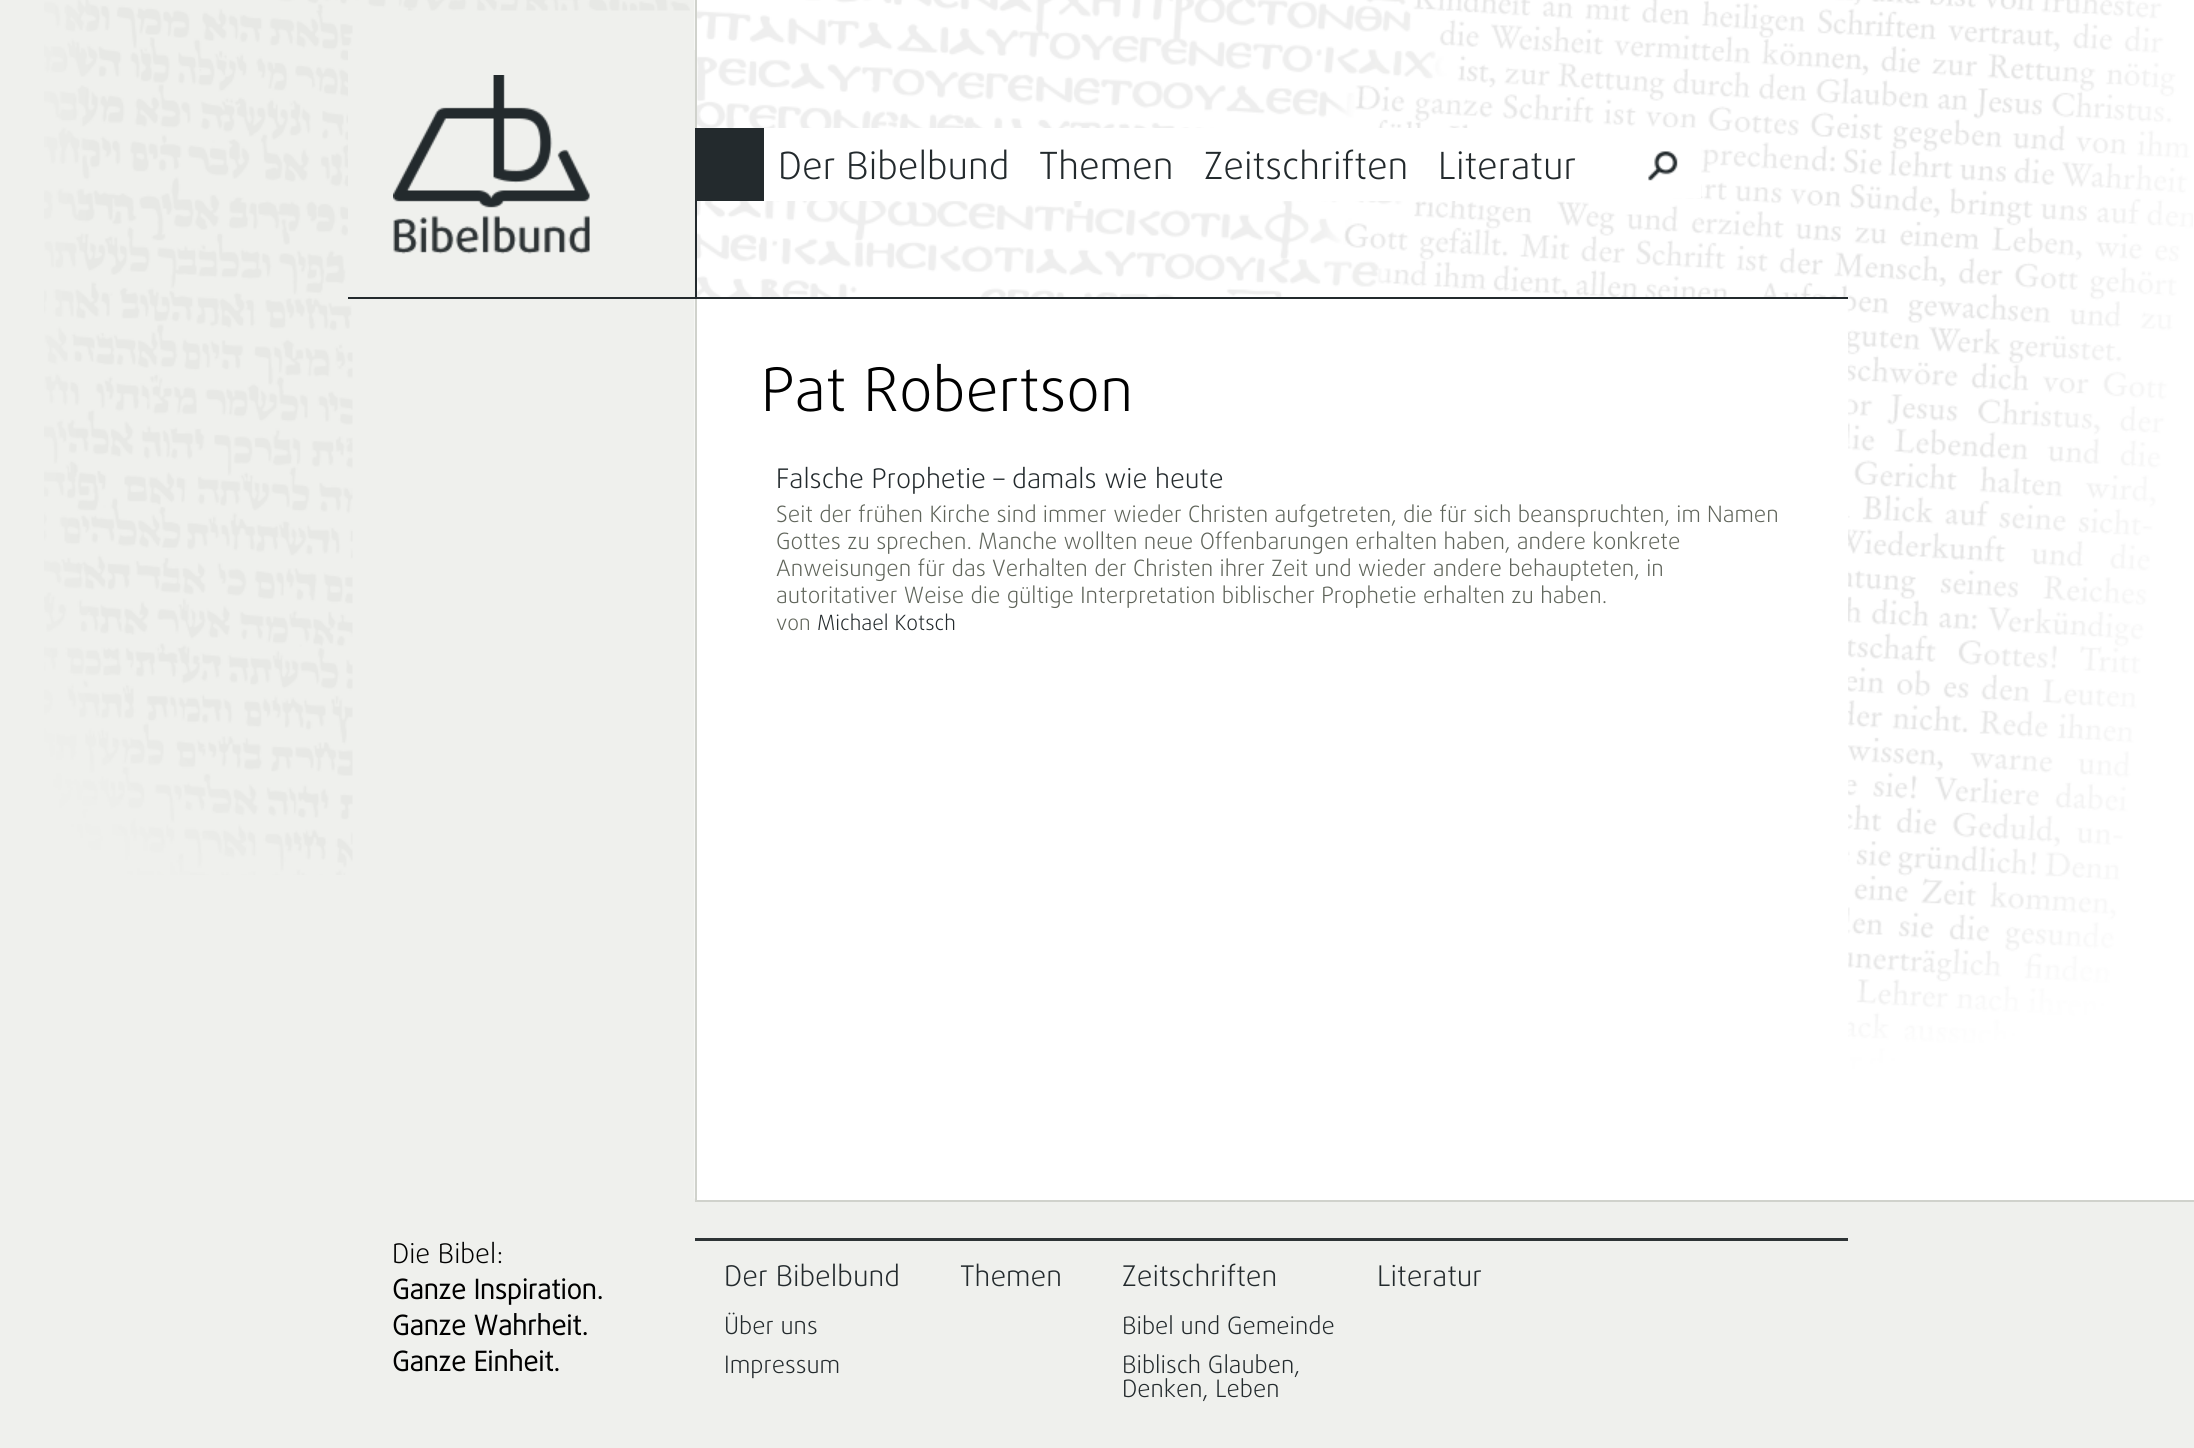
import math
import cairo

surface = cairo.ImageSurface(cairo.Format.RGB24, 2194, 1448)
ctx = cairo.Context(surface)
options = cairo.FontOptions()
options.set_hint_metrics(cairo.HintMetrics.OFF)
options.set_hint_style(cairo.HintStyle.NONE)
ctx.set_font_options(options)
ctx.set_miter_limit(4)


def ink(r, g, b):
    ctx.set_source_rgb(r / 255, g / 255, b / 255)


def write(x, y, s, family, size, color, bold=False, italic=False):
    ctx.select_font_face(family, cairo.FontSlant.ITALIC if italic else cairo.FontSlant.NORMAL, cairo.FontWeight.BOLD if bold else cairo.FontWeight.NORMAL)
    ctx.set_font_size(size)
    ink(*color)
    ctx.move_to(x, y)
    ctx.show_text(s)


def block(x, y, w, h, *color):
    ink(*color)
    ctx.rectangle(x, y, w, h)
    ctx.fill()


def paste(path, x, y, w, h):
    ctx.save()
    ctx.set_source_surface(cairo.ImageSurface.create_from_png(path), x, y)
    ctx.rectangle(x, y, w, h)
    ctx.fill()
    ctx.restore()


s1 = dict(family="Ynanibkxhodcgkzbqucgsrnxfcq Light", size=37.5, color=(35, 42, 45))
s2 = dict(family="Ynanibkxhodcgkzbqucgsrnxfcq Light", size=60, color=(0, 0, 0))
s3 = dict(family="Ynanibkxhodcgkzbqucgsrnxfcq Light", size=27, color=(35, 42, 45))
s4 = dict(family="Ynanibkxhodcgkzbqucgsrnxfcq Light", size=22.5, color=(95, 100, 90))
s5 = dict(family="Ynanibkxhodcgkzbqucgsrnxfcq Light", size=21, color=(95, 100, 90))
s6 = dict(family="Ynanibkxhodcgkzbqucgsrnxfcq Light", size=21, color=(35, 42, 45))
s7 = dict(family="Ynanibkxhodcgkzbqucgsrnxfcq Light", size=27, color=(0, 0, 0))
s8 = dict(family="Ynanibkxhodcgkzbqucgsrnxfcq", size=27, color=(0, 0, 0), bold=True)
s9 = dict(family="Ynanibkxhodcgkzbqucgsrnxfcq Light", size=28.5, color=(35, 42, 45))
s10 = dict(family="Ynanibkxhodcgkzbqucgsrnxfcq Light", size=24, color=(35, 42, 45))

ink(239, 240, 237)
ctx.paint()
paste("pic1.png", 44, 0, 646, 875)
block(1848, 0, 346, 1200, 255, 255, 255)
paste("pic2.png", 694, 0, 1499, 1199)
block(695, 1200, 1499, 2, 208, 210, 204)
block(348, 297, 1500, 2, 35, 42, 45)
block(348, 50, 347, 243, 239, 240, 237)
paste("pic3.png", 393, 75, 197, 179)
block(695, 0, 2, 128, 208, 210, 204)
block(695, 128, 2, 169, 35, 42, 45)
block(697, 128, 67, 73, 35, 42, 45)
block(764, 128, 826, 73, 255, 255, 255)
write(778, 179, "Der Bibelbund", **s1)
write(1039, 179, "Themen", **s1)
write(1204, 179, "Zeitschriften", **s1)
write(1438, 179, "Literatur", **s1)
paste("pic4.png", 1627, 127, 74, 71)
block(1590, 133, 38, 61, 255, 255, 255)
block(697, 333, 1151, 867, 255, 255, 255)
block(695, 299, 2, 903, 208, 210, 204)
write(761, 411, "Pat Robertson", **s2)
write(776, 488, "Falsche Prophetie – damals wie heute", **s3)
write(776, 522, "Seit der frühen Kirche sind immer wieder Christen aufgetreten, die für sich beanspruchten, im Namen", **s4)
write(776, 549, "Gottes zu sprechen. Manche wollten neue Offenbarungen erhalten haben, andere konkrete", **s4)
write(776, 576, "Anweisungen für das Verhalten der Christen ihrer Zeit und wieder andere behaupteten, in", **s4)
write(776, 603, "autoritativer Weise die gültige Interpretation biblischer Prophetie erhalten zu haben.", **s4)
write(776, 630, "von", **s5)
write(817, 630, "Michael Kotsch", **s6)
write(392, 1263, "Die Bibel:", **s7)
write(392, 1299, "Ganze Inspiration.", **s8)
write(392, 1335, "Ganze Wahrheit.", **s8)
write(392, 1371, "Ganze Einheit.", **s8)
block(695, 1238, 1153, 3, 46, 52, 54)
write(724, 1286, "Der Bibelbund", **s9)
write(724, 1334, "Über uns", **s10)
write(724, 1373, "Impressum", **s10)
write(960, 1286, "Themen", **s9)
write(1122, 1286, "Zeitschriften", **s9)
write(1122, 1334, "Bibel und Gemeinde", **s10)
write(1122, 1373, "Biblisch Glauben,", **s10)
write(1122, 1397, "Denken, Leben", **s10)
write(1377, 1286, "Literatur", **s9)
surface.write_to_png("screenshot.png")
